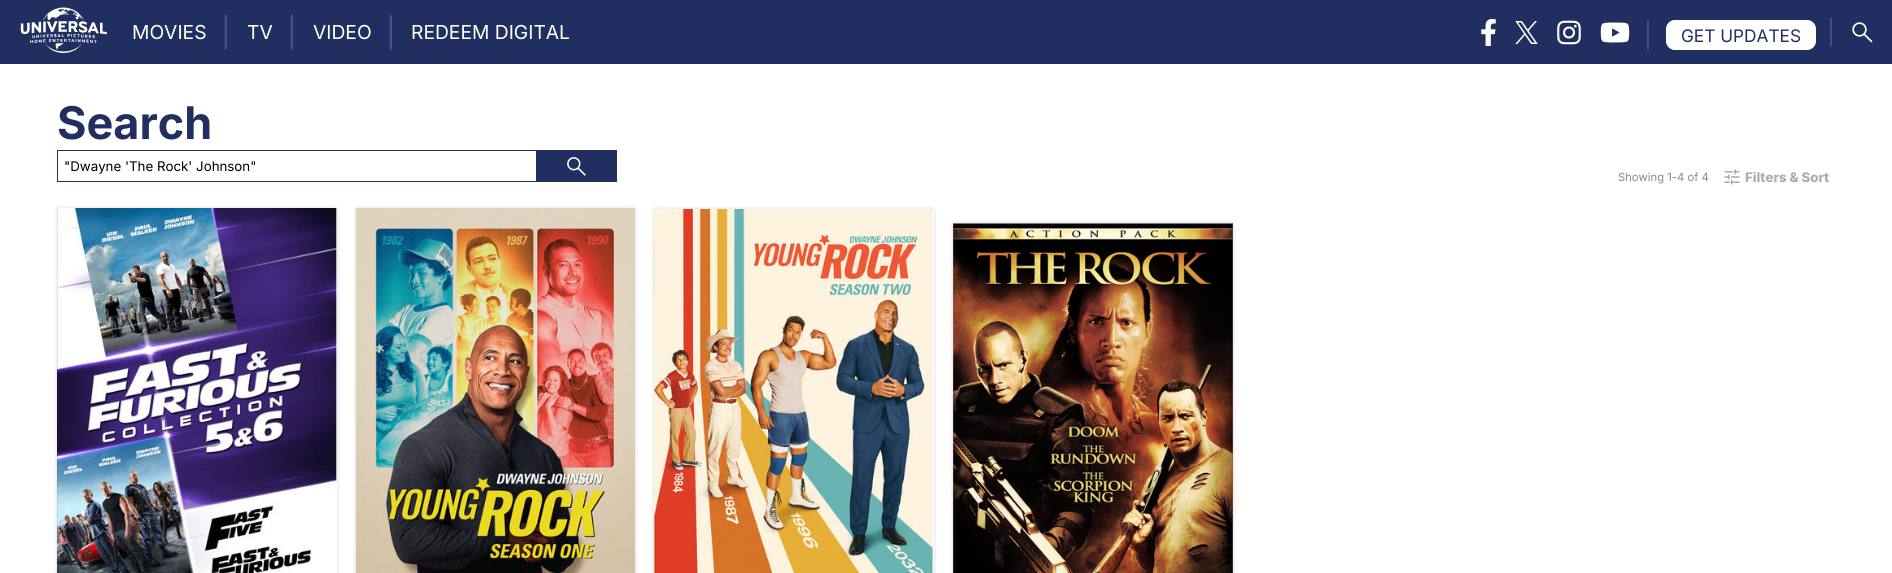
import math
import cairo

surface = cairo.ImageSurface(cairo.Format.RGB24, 1892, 573)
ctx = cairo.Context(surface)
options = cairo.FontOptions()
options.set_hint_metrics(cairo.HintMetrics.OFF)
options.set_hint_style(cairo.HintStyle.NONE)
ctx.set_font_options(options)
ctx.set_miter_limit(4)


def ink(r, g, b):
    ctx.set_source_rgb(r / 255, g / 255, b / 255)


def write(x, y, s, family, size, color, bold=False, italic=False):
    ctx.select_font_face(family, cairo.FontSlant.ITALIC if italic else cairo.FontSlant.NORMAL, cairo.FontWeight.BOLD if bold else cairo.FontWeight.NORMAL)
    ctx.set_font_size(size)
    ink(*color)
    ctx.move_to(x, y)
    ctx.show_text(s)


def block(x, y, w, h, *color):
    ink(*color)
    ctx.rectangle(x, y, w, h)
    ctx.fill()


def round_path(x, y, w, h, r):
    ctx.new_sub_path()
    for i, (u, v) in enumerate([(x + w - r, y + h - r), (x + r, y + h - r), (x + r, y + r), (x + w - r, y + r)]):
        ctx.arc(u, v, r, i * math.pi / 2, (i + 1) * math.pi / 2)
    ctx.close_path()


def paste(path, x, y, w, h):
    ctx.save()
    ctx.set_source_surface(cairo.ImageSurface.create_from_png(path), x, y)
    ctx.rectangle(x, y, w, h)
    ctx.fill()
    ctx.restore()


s1 = dict(family="Inter", size=19.25, color=(255, 255, 255))
s2 = dict(family="Inter", size=29, color=(71, 80, 132))
s3 = dict(family="Inter", size=24, color=(71, 80, 132))
s4 = dict(family="Inter", size=17.25, color=(32, 47, 96))
s5 = dict(family="Inter", size=45, color=(32, 47, 96), bold=True)
s6 = dict(family="Inter", size=13.3, color=(0, 0, 0))
s7 = dict(family="Inter ExtraBold", size=13.3, color=(173, 173, 173))
s8 = dict(family="Inter", size=11.25, color=(136, 136, 136))

ink(255, 255, 255)
ctx.paint()
block(0, 0, 1892, 64, 32, 47, 96)
paste("pic1.png", 20, 7, 87, 46)
write(132, 39, "MOVIES", **s1)
write(221, 43, "|", **s2)
write(247, 39, "TV", **s1)
write(287, 43, "|", **s2)
write(313, 39, "VIDEO", **s1)
write(386, 43, "|", **s2)
write(411, 39, "REDEEM DIGITAL", **s1)
paste("pic2.png", 1481, 19, 15, 27)
paste("pic3.png", 1515, 21, 23, 23)
paste("pic4.png", 1557, 20, 24, 25)
paste("pic5.png", 1600, 22, 30, 21)
write(1644, 44, "|", **s3)
ink(255, 255, 255)
round_path(1666.5, 20.5, 149, 29, 8.5)
ctx.fill_preserve()
ctx.set_line_width(1)
ctx.stroke()
write(1681, 42, "GET UPDATES", **s4)
write(1827, 41, "|", **s3)
paste("pic6.png", 1852, 22, 21, 21)
write(57, 139, "Search", **s5)
ctx.rectangle(57.5, 150.5, 479, 31)
ctx.stroke()
write(64, 171, "\"Dwayne 'The Rock' Johnson\"", **s6)
block(537, 150, 80, 32, 32, 47, 96)
paste("pic7.png", 567, 157, 19, 19)
paste("pic8.png", 1724, 169, 16, 16)
write(1745, 182, "Filters & Sort", **s7)
write(1618, 181, "Showing 1-4 of 4", **s8)
paste("pic9.png", 54, 205, 286, 368)
paste("pic10.png", 353, 205, 285, 368)
paste("pic11.png", 651, 206, 286, 367)
paste("pic12.png", 950, 220, 286, 353)
surface.write_to_png("screenshot.png")
